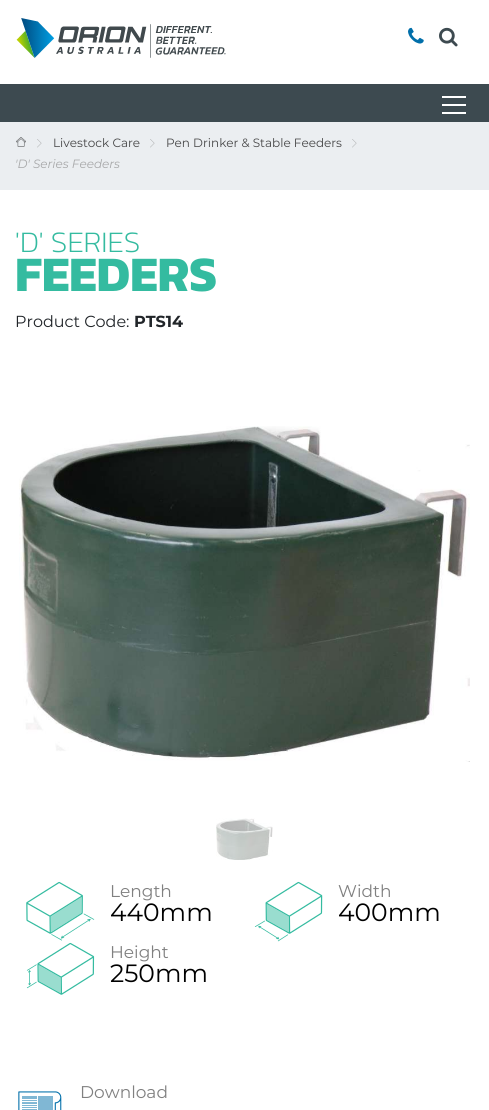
import math
import cairo

surface = cairo.ImageSurface(cairo.Format.RGB24, 489, 1110)
ctx = cairo.Context(surface)
options = cairo.FontOptions()
options.set_hint_metrics(cairo.HintMetrics.OFF)
options.set_hint_style(cairo.HintStyle.NONE)
ctx.set_font_options(options)
ctx.set_miter_limit(4)


def ink(r, g, b):
    ctx.set_source_rgb(r / 255, g / 255, b / 255)


def write(x, y, s, family, size, color, bold=False, italic=False):
    ctx.select_font_face(family, cairo.FontSlant.ITALIC if italic else cairo.FontSlant.NORMAL, cairo.FontWeight.BOLD if bold else cairo.FontWeight.NORMAL)
    ctx.set_font_size(size)
    ink(*color)
    ctx.move_to(x, y)
    ctx.show_text(s)


def block(x, y, w, h, *color):
    ink(*color)
    ctx.rectangle(x, y, w, h)
    ctx.fill()


def paste(path, x, y, w, h):
    ctx.save()
    ctx.set_source_surface(cairo.ImageSurface.create_from_png(path), x, y)
    ctx.rectangle(x, y, w, h)
    ctx.fill()
    ctx.restore()


s1 = dict(family="Montserrat", size=12, color=(71, 71, 72))
s2 = dict(family="Montserrat", size=12, color=(167, 168, 169), italic=True)
s3 = dict(family="Kanit ExtraLight", size=30, color=(52, 187, 160))
s4 = dict(family="Kanit", size=50, color=(52, 187, 160), bold=True)
s5 = dict(family="Montserrat", size=16, color=(33, 37, 41))
s6 = dict(family="Montserrat", size=16, color=(33, 37, 41), bold=True)
s7 = dict(family="Montserrat", size=17, color=(128, 128, 128))
s8 = dict(family="Montserrat", size=25, color=(0, 0, 0))

ink(255, 255, 255)
ctx.paint()
paste("pic1.png", 16, 18, 210, 40)
paste("pic2.png", 408, 27, 16, 17)
paste("pic3.png", 439, 27, 19, 20)
block(0, 84, 489, 38, 61, 74, 80)
block(442, 104, 24, 2, 255, 255, 255)
block(442, 96, 24, 2, 255, 255, 255)
block(442, 112, 24, 2, 255, 255, 255)
block(0, 122, 489, 68, 235, 238, 241)
paste("pic4.png", 16, 137, 10, 10)
paste("pic5.png", 37, 139, 5, 9)
write(53, 147, "Livestock Care", **s1)
paste("pic5.png", 150, 139, 5, 9)
write(166, 147, "Pen Drinker & Stable Feeders", **s1)
paste("pic5.png", 352, 139, 5, 9)
write(15, 168, "'D' Series Feeders", **s2)
write(15, 252, "'D' SERIES", **s3)
write(15, 291, "FEEDERS", **s4)
write(15, 327, "Product Code:", **s5)
write(134, 327, "PTS14", **s6)
paste("pic6.png", 19, 426, 451, 336)
paste("pic7.png", 216, 818, 57, 42)
paste("pic8.png", 26, 881, 69, 60)
write(110, 897, "Length", **s7)
write(110, 921, "440mm", **s8)
paste("pic9.png", 254, 881, 69, 61)
write(338, 897, "Width", **s7)
write(338, 921, "400mm", **s8)
paste("pic10.png", 26, 942, 69, 53)
write(110, 958, "Height", **s7)
write(110, 982, "250mm", **s8)
paste("pic11.png", 18, 1091, 44, 19)
write(80, 1098, "Download", **s7)
surface.write_to_png("screenshot.png")
